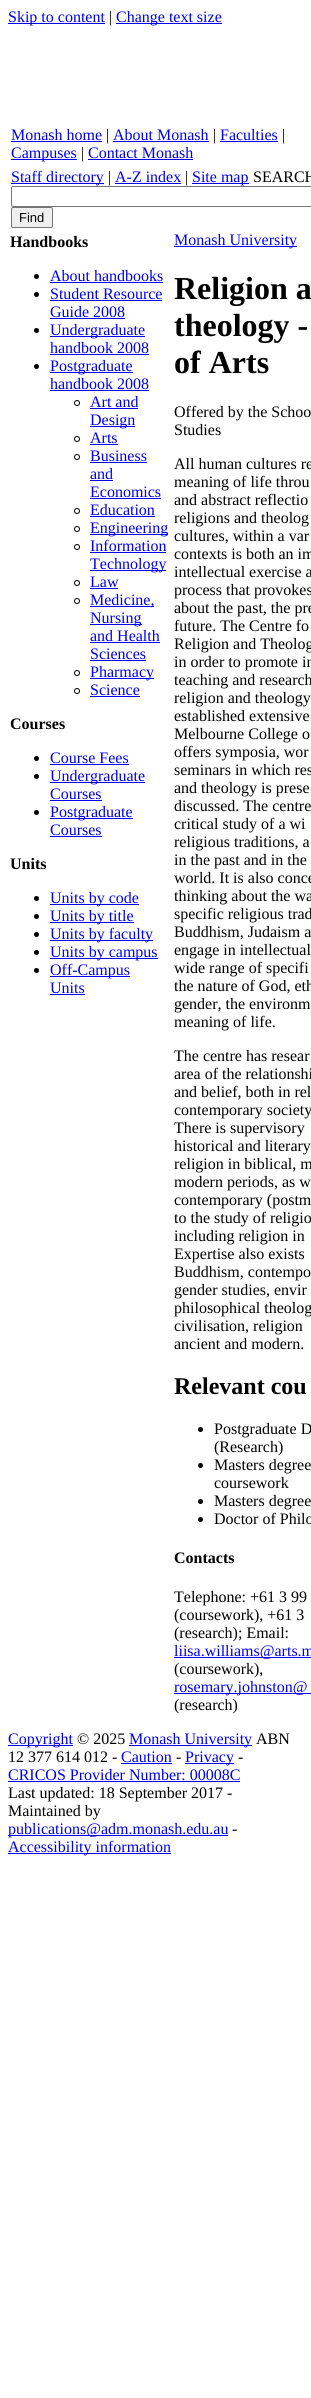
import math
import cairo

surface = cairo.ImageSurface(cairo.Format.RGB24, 311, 2398)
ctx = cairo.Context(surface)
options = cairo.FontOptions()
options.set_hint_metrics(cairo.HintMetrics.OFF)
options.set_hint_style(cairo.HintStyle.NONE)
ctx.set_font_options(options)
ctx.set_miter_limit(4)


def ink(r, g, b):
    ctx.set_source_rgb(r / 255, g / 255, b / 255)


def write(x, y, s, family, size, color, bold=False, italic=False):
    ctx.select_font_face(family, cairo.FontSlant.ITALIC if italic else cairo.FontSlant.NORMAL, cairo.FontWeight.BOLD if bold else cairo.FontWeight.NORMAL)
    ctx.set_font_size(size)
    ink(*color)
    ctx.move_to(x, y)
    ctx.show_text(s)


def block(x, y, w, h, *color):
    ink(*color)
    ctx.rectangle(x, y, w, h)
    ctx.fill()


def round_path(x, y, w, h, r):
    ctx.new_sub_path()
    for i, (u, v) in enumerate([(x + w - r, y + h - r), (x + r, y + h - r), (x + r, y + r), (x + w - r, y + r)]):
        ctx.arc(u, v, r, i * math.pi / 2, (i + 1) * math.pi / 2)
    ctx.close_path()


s1 = dict(family="Liberation Serif", size=16, color=(0, 0, 238))
s2 = dict(family="Liberation Serif", size=16, color=(0, 0, 0))
s3 = dict(family="Liberation Sans", size=13, color=(0, 0, 0))
s4 = dict(family="Liberation Serif", size=16, color=(0, 0, 0), bold=True)
s5 = dict(family="Liberation Serif", size=32, color=(0, 0, 0), bold=True)
s6 = dict(family="Liberation Serif", size=24, color=(0, 0, 0), bold=True)

ink(255, 255, 255)
ctx.paint()
block(8, 23, 97, 1, 0, 0, 238)
write(8, 22, "Skip to content", **s1)
write(109, 22, "|", **s2)
block(116, 23, 106, 1, 0, 0, 238)
write(116, 22, "Change text size", **s1)
write(11, 140, "Monash home", **s1)
block(11, 141, 91, 1, 0, 0, 238)
write(106, 140, "|", **s2)
write(113, 140, "About Monash", **s1)
block(113, 141, 96, 1, 0, 0, 238)
write(213, 140, "|", **s2)
write(220, 140, "Faculties", **s1)
block(220, 141, 58, 1, 0, 0, 238)
write(282, 140, "|", **s2)
block(11, 159, 66, 1, 0, 0, 238)
write(11, 158, "Campuses", **s1)
write(81, 158, "|", **s2)
write(88, 158, "Contact Monash", **s1)
block(88, 159, 105, 1, 0, 0, 238)
block(11, 183, 93, 1, 0, 0, 238)
write(11, 182, "Staff directory", **s1)
write(108, 182, "|", **s2)
write(115, 182, "A-Z index", **s1)
block(115, 183, 66, 1, 0, 0, 238)
write(185, 182, "|", **s2)
block(192, 183, 57, 1, 0, 0, 238)
write(192, 182, "Site map", **s1)
write(253, 182, "SEARCH", **s2)
round_path(11.5, 186.5, 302, 20, 1.5)
ink(118, 118, 118)
ctx.set_line_width(1)
ctx.stroke()
ink(239, 239, 239)
round_path(11.5, 207.5, 41, 20, 1.5)
ctx.fill_preserve()
ink(118, 118, 118)
ctx.stroke()
write(19, 222, "Find", **s3)
write(10, 247, "Handbooks", **s4)
ctx.new_path()
ctx.arc(36.5, 276.5, 2.5, 0, 2 * math.pi)
ctx.fill()
write(50, 281, "About handbooks", **s1)
block(50, 282, 113, 1, 0, 0, 238)
ink(0, 0, 0)
ctx.new_path()
ctx.arc(36.5, 294.5, 2.5, 0, 2 * math.pi)
ctx.fill()
write(50, 299, "Student Resource", **s1)
block(50, 300, 112, 1, 0, 0, 238)
write(50, 317, "Guide 2008", **s1)
block(50, 318, 75, 1, 0, 0, 238)
ink(0, 0, 0)
ctx.new_path()
ctx.arc(36.5, 330.5, 2.5, 0, 2 * math.pi)
ctx.fill()
block(50, 336, 95, 1, 0, 0, 238)
write(50, 335, "Undergraduate", **s1)
write(50, 353, "handbook 2008", **s1)
block(50, 354, 99, 1, 0, 0, 238)
ink(0, 0, 0)
ctx.new_path()
ctx.arc(36.5, 366.5, 2.5, 0, 2 * math.pi)
ctx.fill()
block(50, 372, 83, 1, 0, 0, 238)
write(50, 371, "Postgraduate", **s1)
write(50, 389, "handbook 2008", **s1)
block(50, 390, 99, 1, 0, 0, 238)
ctx.new_path()
ctx.arc(77, 403, 2.5, 0, 2 * math.pi)
ink(0, 0, 0)
ctx.stroke()
write(90, 407, "Art and", **s1)
block(90, 408, 48, 1, 0, 0, 238)
block(90, 426, 45, 1, 0, 0, 238)
write(90, 425, "Design", **s1)
ctx.new_path()
ctx.arc(77, 439, 2.5, 0, 2 * math.pi)
ink(0, 0, 0)
ctx.stroke()
write(90, 443, "Arts", **s1)
block(90, 444, 28, 1, 0, 0, 238)
ctx.new_path()
ctx.arc(77, 457, 2.5, 0, 2 * math.pi)
ink(0, 0, 0)
ctx.stroke()
write(90, 461, "Business", **s1)
block(90, 462, 57, 1, 0, 0, 238)
write(90, 479, "and", **s1)
block(90, 480, 23, 1, 0, 0, 238)
write(90, 497, "Economics", **s1)
block(90, 498, 71, 1, 0, 0, 238)
ctx.new_path()
ctx.arc(77, 511, 2.5, 0, 2 * math.pi)
ink(0, 0, 0)
ctx.stroke()
write(90, 515, "Education", **s1)
block(90, 516, 65, 1, 0, 0, 238)
ctx.new_path()
ctx.arc(77, 529, 2.5, 0, 2 * math.pi)
ink(0, 0, 0)
ctx.stroke()
block(90, 534, 78, 1, 0, 0, 238)
write(90, 533, "Engineering", **s1)
ctx.new_path()
ctx.arc(77, 547, 2.5, 0, 2 * math.pi)
ink(0, 0, 0)
ctx.stroke()
write(90, 551, "Information", **s1)
block(90, 552, 76, 1, 0, 0, 238)
block(90, 570, 76, 1, 0, 0, 238)
write(90, 569, "Technology", **s1)
ctx.new_path()
ctx.arc(77, 583, 2.5, 0, 2 * math.pi)
ink(0, 0, 0)
ctx.stroke()
write(90, 587, "Law", **s1)
block(90, 588, 28, 1, 0, 0, 238)
ctx.new_path()
ctx.arc(77, 601, 2.5, 0, 2 * math.pi)
ink(0, 0, 0)
ctx.stroke()
block(90, 606, 64, 1, 0, 0, 238)
write(90, 605, "Medicine,", **s1)
block(90, 624, 52, 1, 0, 0, 238)
write(90, 623, "Nursing", **s1)
write(90, 641, "and Health", **s1)
block(90, 642, 70, 1, 0, 0, 238)
write(90, 659, "Sciences", **s1)
block(90, 660, 56, 1, 0, 0, 238)
ctx.new_path()
ctx.arc(77, 673, 2.5, 0, 2 * math.pi)
ink(0, 0, 0)
ctx.stroke()
block(90, 678, 64, 1, 0, 0, 238)
write(90, 677, "Pharmacy", **s1)
ctx.new_path()
ctx.arc(77, 691, 2.5, 0, 2 * math.pi)
ink(0, 0, 0)
ctx.stroke()
write(90, 695, "Science", **s1)
block(90, 696, 50, 1, 0, 0, 238)
write(10, 729, "Courses", **s4)
ctx.new_path()
ctx.arc(36.5, 758.5, 2.5, 0, 2 * math.pi)
ctx.fill()
write(50, 763, "Course Fees", **s1)
block(50, 764, 79, 1, 0, 0, 238)
ink(0, 0, 0)
ctx.new_path()
ctx.arc(36.5, 776.5, 2.5, 0, 2 * math.pi)
ctx.fill()
block(50, 782, 95, 1, 0, 0, 238)
write(50, 781, "Undergraduate", **s1)
write(50, 799, "Courses", **s1)
block(50, 800, 52, 1, 0, 0, 238)
ink(0, 0, 0)
ctx.new_path()
ctx.arc(36.5, 812.5, 2.5, 0, 2 * math.pi)
ctx.fill()
block(50, 818, 83, 1, 0, 0, 238)
write(50, 817, "Postgraduate", **s1)
write(50, 835, "Courses", **s1)
block(50, 836, 52, 1, 0, 0, 238)
write(10, 869, "Units", **s4)
ctx.new_path()
ctx.arc(36.5, 898.5, 2.5, 0, 2 * math.pi)
ctx.fill()
block(50, 904, 89, 1, 0, 0, 238)
write(50, 903, "Units by code", **s1)
ink(0, 0, 0)
ctx.new_path()
ctx.arc(36.5, 916.5, 2.5, 0, 2 * math.pi)
ctx.fill()
block(50, 922, 84, 1, 0, 0, 238)
write(50, 921, "Units by title", **s1)
ink(0, 0, 0)
ctx.new_path()
ctx.arc(36.5, 934.5, 2.5, 0, 2 * math.pi)
ctx.fill()
block(50, 940, 103, 1, 0, 0, 238)
write(50, 939, "Units by faculty", **s1)
ink(0, 0, 0)
ctx.new_path()
ctx.arc(36.5, 952.5, 2.5, 0, 2 * math.pi)
ctx.fill()
block(50, 958, 108, 1, 0, 0, 238)
write(50, 957, "Units by campus", **s1)
ink(0, 0, 0)
ctx.new_path()
ctx.arc(36.5, 970.5, 2.5, 0, 2 * math.pi)
ctx.fill()
block(50, 976, 80, 1, 0, 0, 238)
write(50, 975, "Off-Campus", **s1)
write(50, 993, "Units", **s1)
block(50, 994, 35, 1, 0, 0, 238)
block(174, 246, 123, 1, 0, 0, 238)
write(174, 245, "Monash University", **s1)
write(174, 299, "Religion a", **s5)
write(174, 336, "theology -", **s5)
write(174, 373, "of Arts", **s5)
write(174, 417, "Offered by the Schoo", **s2)
write(174, 435, "Studies", **s2)
write(174, 469, "All human cultures re", **s2)
write(174, 487, "meaning of life throu", **s2)
write(174, 505, "and abstract reflectio", **s2)
write(174, 523, "religions and theolog", **s2)
write(174, 541, "cultures, within a var", **s2)
write(174, 559, "contexts is both an im", **s2)
write(174, 577, "intellectual exercise a", **s2)
write(174, 595, "process that provokes", **s2)
write(174, 613, "about the past, the pre", **s2)
write(174, 631, "future. The Centre fo", **s2)
write(174, 649, "Religion and Theolog", **s2)
write(174, 667, "in order to promote in", **s2)
write(174, 685, "teaching and research", **s2)
write(174, 703, "religion and theology", **s2)
write(174, 721, "established extensive", **s2)
write(174, 739, "Melbourne College o", **s2)
write(174, 757, "offers symposia, wor", **s2)
write(174, 775, "seminars in which res", **s2)
write(174, 793, "and theology is prese", **s2)
write(174, 811, "discussed. The centre", **s2)
write(174, 829, "critical study of a wi", **s2)
write(174, 847, "religious traditions, a", **s2)
write(174, 865, "in the past and in the", **s2)
write(174, 883, "world. It is also conce", **s2)
write(174, 901, "thinking about the wa", **s2)
write(174, 919, "specific religious trad", **s2)
write(174, 937, "Buddhism, Judaism a", **s2)
write(174, 955, "engage in intellectual", **s2)
write(174, 973, "wide range of specifi", **s2)
write(174, 991, "the nature of God, eth", **s2)
write(174, 1009, "gender, the environm", **s2)
write(174, 1027, "meaning of life.", **s2)
write(174, 1061, "The centre has resear", **s2)
write(174, 1079, "area of the relationshi", **s2)
write(174, 1097, "and belief, both in rel", **s2)
write(174, 1115, "contemporary society", **s2)
write(174, 1133, "There is supervisory", **s2)
write(174, 1151, "historical and literary", **s2)
write(174, 1169, "religion in biblical, m", **s2)
write(174, 1187, "modern periods, as w", **s2)
write(174, 1205, "contemporary (postm", **s2)
write(174, 1223, "to the study of religio", **s2)
write(174, 1241, "including religion in", **s2)
write(174, 1259, "Expertise also exists", **s2)
write(174, 1277, "Buddhism, contempo", **s2)
write(174, 1295, "gender studies, envir", **s2)
write(174, 1313, "philosophical theolog", **s2)
write(174, 1331, "civilisation, religion", **s2)
write(174, 1349, "ancient and modern.", **s2)
write(174, 1394, "Relevant cou", **s6)
ctx.new_path()
ctx.arc(200.5, 1429.5, 2.5, 0, 2 * math.pi)
ctx.fill()
write(214, 1434, "Postgraduate D", **s2)
write(214, 1452, "(Research)", **s2)
ctx.new_path()
ctx.arc(200.5, 1465.5, 2.5, 0, 2 * math.pi)
ctx.fill()
write(214, 1470, "Masters degree", **s2)
write(214, 1488, "coursework", **s2)
ctx.new_path()
ctx.arc(200.5, 1501.5, 2.5, 0, 2 * math.pi)
ctx.fill()
write(214, 1506, "Masters degree", **s2)
ctx.new_path()
ctx.arc(200.5, 1519.5, 2.5, 0, 2 * math.pi)
ctx.fill()
write(214, 1524, "Doctor of Philo", **s2)
write(174, 1563, "Contacts", **s4)
write(174, 1602, "Telephone: +61 3 99", **s2)
write(174, 1620, "(coursework), +61 3", **s2)
write(174, 1638, "(research); Email:", **s2)
block(174, 1657, 137, 1, 0, 0, 238)
write(174, 1656, "liisa.williams@arts.m", **s1)
write(174, 1674, "(coursework),", **s2)
block(174, 1693, 137, 1, 0, 0, 238)
write(174, 1692, "rosemary.johnston@", **s1)
write(174, 1710, "(research)", **s2)
block(8, 1745, 65, 1, 0, 0, 238)
write(8, 1744, "Copyright", **s1)
write(77, 1744, "© 2025", **s2)
block(129, 1745, 123, 1, 0, 0, 238)
write(129, 1744, "Monash University", **s1)
write(256, 1744, "ABN", **s2)
write(8, 1762, "12 377 614 012 -", **s2)
write(121, 1762, "Caution", **s1)
block(121, 1763, 51, 1, 0, 0, 238)
write(176, 1762, "-", **s2)
block(185, 1763, 49, 1, 0, 0, 238)
write(185, 1762, "Privacy", **s1)
write(238, 1762, "-", **s2)
write(8, 1780, "CRICOS Provider Number: 00008C", **s1)
block(8, 1781, 232, 1, 0, 0, 238)
write(8, 1798, "Last updated: 18 September 2017 -", **s2)
write(8, 1816, "Maintained by", **s2)
block(8, 1835, 220, 1, 0, 0, 238)
write(8, 1834, "publications@adm.monash.edu.au", **s1)
write(232, 1834, "-", **s2)
block(8, 1853, 163, 1, 0, 0, 238)
write(8, 1852, "Accessibility information", **s1)
surface.write_to_png("screenshot.png")
